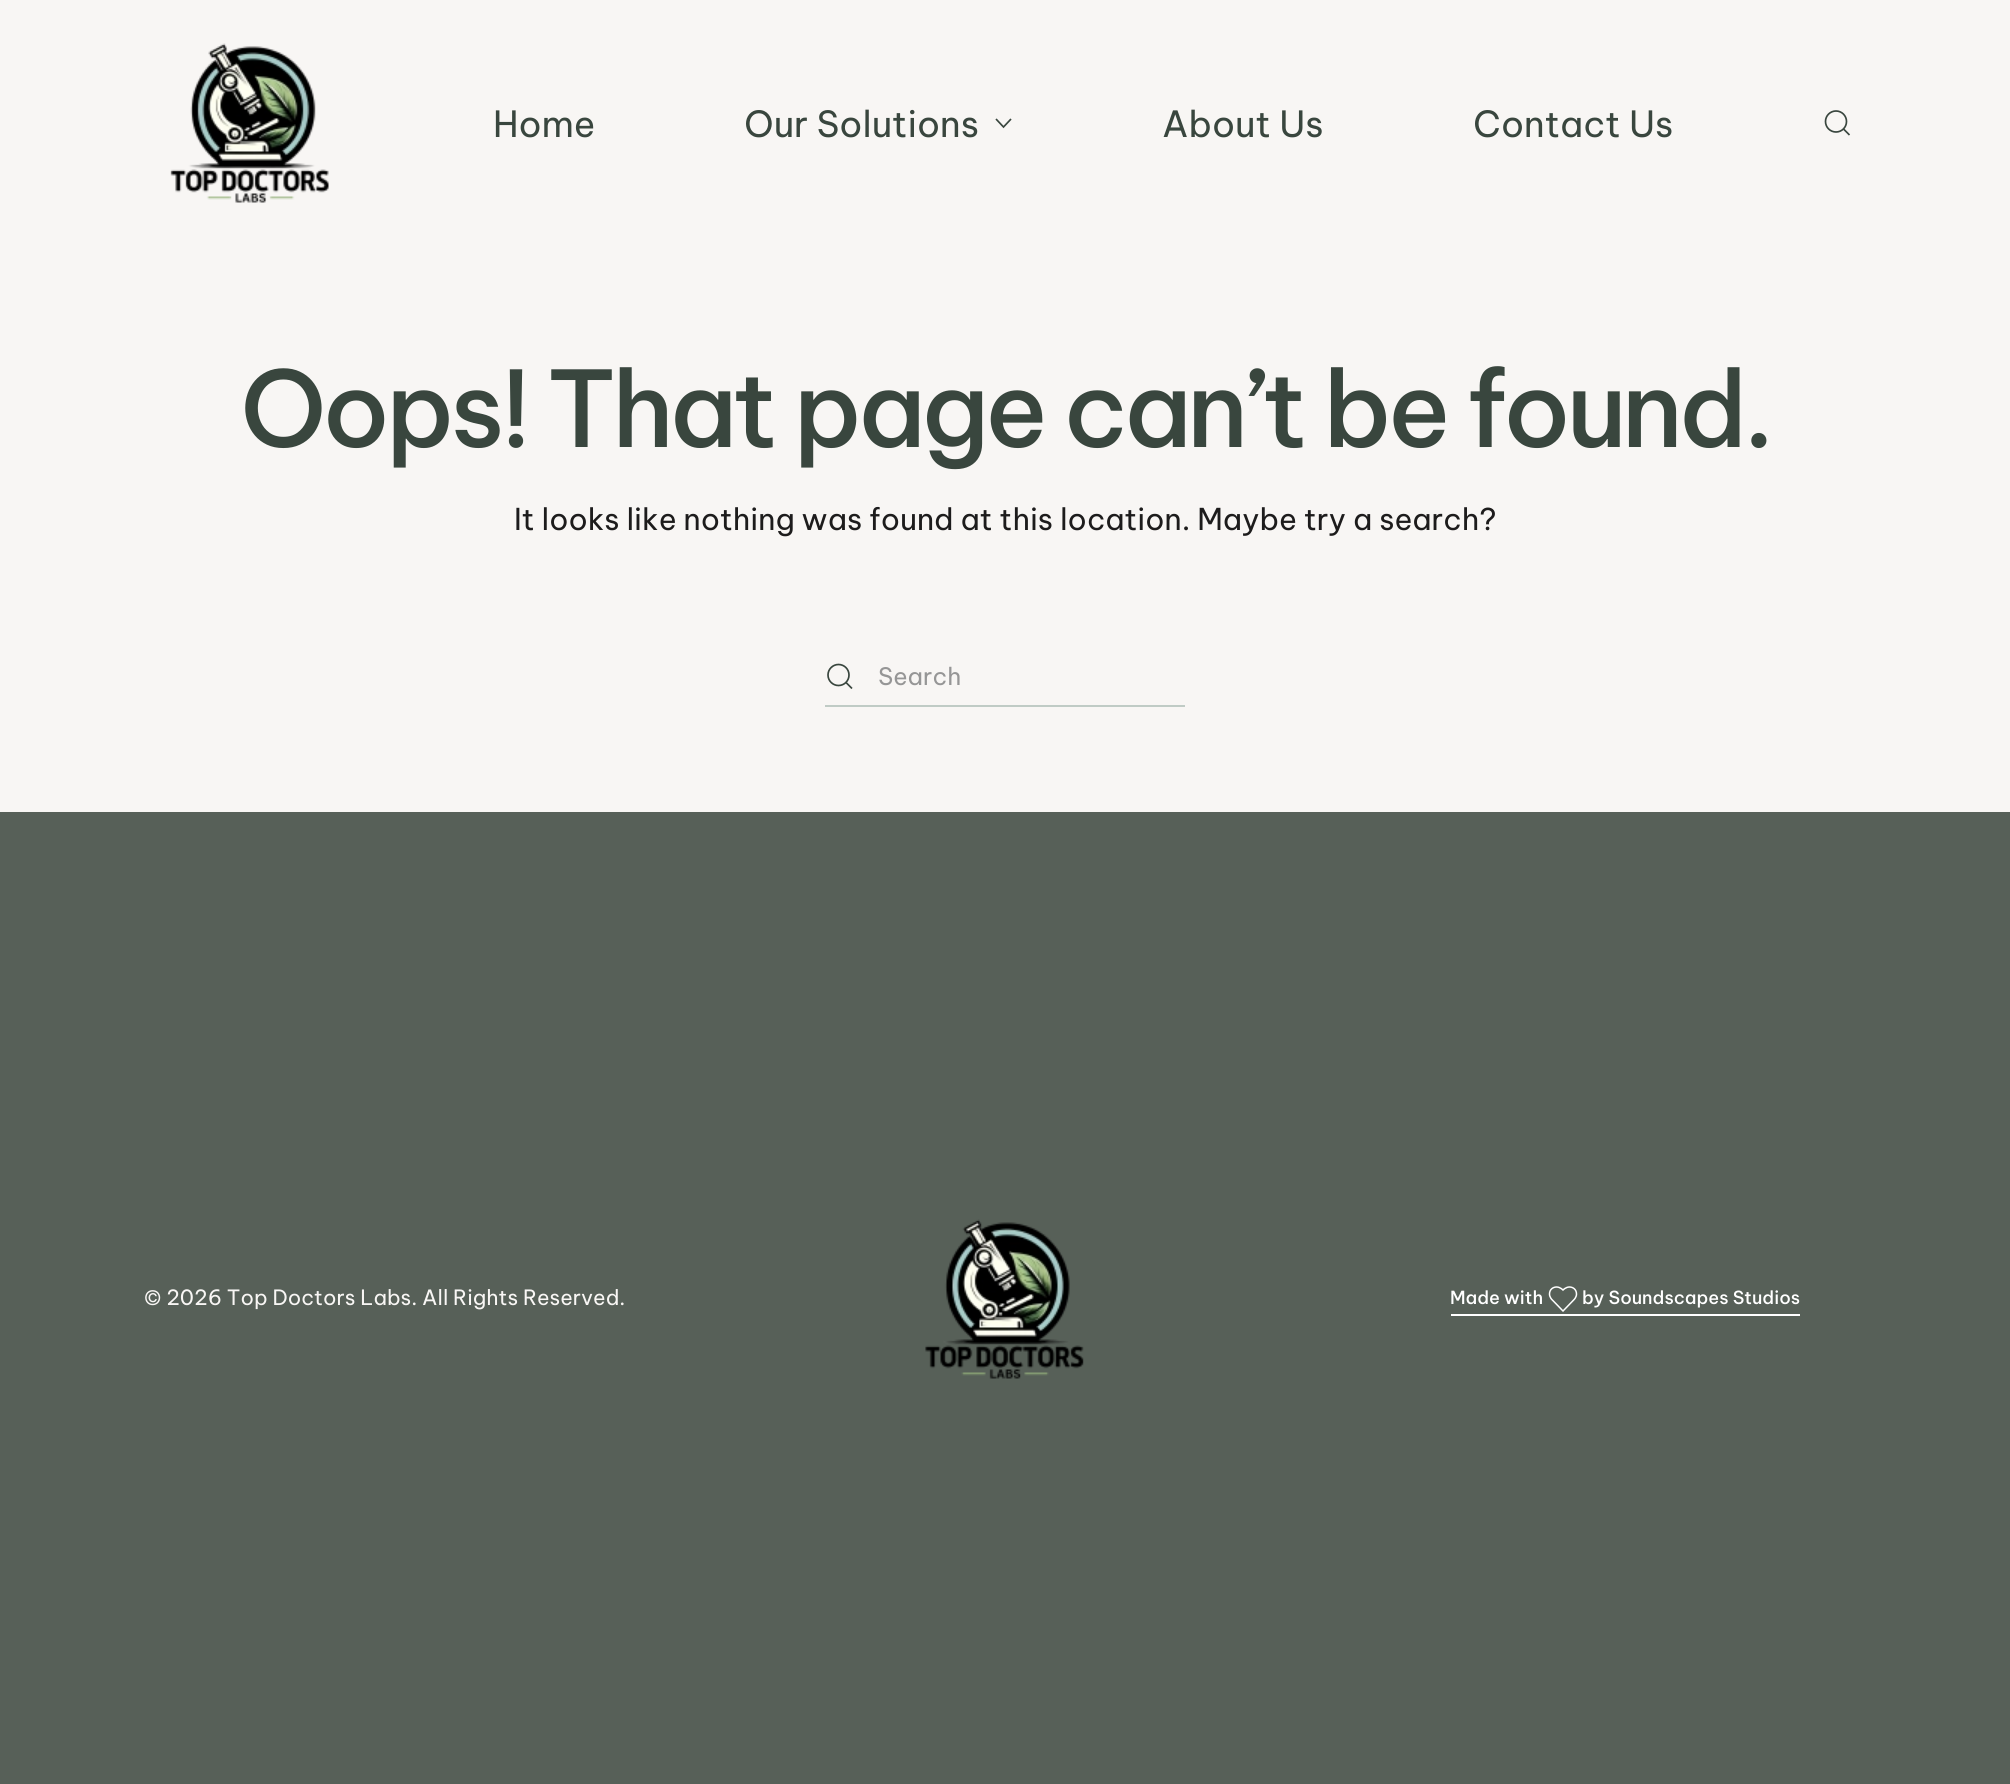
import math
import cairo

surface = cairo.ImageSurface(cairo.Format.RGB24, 2010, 1784)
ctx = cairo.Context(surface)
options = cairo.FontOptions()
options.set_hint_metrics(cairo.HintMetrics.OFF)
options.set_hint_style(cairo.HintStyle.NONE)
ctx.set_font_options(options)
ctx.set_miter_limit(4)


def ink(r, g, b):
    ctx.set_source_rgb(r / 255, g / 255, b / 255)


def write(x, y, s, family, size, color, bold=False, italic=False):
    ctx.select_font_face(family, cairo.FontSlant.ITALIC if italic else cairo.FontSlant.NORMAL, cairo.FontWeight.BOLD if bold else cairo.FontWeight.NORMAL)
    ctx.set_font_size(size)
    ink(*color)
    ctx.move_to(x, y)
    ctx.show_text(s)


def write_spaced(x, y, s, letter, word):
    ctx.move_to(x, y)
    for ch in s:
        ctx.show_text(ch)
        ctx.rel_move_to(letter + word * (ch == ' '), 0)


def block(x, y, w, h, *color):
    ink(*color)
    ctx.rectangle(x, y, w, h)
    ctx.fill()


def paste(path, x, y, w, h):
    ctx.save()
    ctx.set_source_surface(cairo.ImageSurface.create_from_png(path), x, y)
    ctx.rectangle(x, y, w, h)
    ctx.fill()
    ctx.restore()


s1 = dict(family="Be Vietnam Pro", size=36, color=(57, 70, 62))
s2 = dict(family="Be Vietnam Pro", size=30, color=(29, 28, 28))
s3 = dict(family="Be Vietnam Pro", size=24, color=(150, 150, 150))
s4 = dict(family="Be Vietnam Pro", size=21, color=(248, 246, 244))
s5 = dict(family="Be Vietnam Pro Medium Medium", size=18, color=(255, 255, 255))

ink(248, 246, 244)
ctx.paint()
paste("pic1.png", 170, 43, 159, 160)
write(493, 137, "Home", **s1)
write(744, 137, "Our Solutions", **s1)
ctx.new_path()
ctx.move_to(996, 119)
ctx.line_to(1003.5, 127)
ctx.line_to(1011, 119)
ctx.set_line_width(1.7)
ctx.stroke()
write(1162, 137, "About Us", **s1)
write(1473, 137, "Contact Us", **s1)
ctx.new_path()
ctx.arc(1836, 121.5, 10.5, 0, 2 * math.pi)
ctx.stroke()
ctx.new_path()
ctx.move_to(1843.5, 129)
ctx.line_to(1849.5, 135)
ctx.close_path()
ctx.stroke()
ctx.select_font_face("Be Vietnam Pro Medium Medium")
ctx.set_font_size(105)
write_spaced(240, 447, "Oops! That page can’t be found.", -4.5, 0)
write(514, 530, "It looks like nothing was found at this location. Maybe try a search?", **s2)
ctx.new_path()
ctx.arc(838.5, 675, 10.5, 0, 2 * math.pi)
ink(57, 70, 62)
ctx.stroke()
ctx.new_path()
ctx.move_to(846, 682.5)
ctx.line_to(852, 688.5)
ctx.close_path()
ctx.stroke()
block(825, 705, 360, 2, 192, 203, 197)
write(878, 685, "Search", **s3)
block(0, 812, 2010, 972, 87, 96, 88)
write(144, 1305, "© 2026 Top Doctors Labs. All Rights Reserved.", **s4)
paste("pic2.png", 925, 1219, 159, 160)
write(1450, 1304, "Made with", **s5)
paste("pic3.png", 1548, 1286, 30, 26)
write(1582, 1304, "by Soundscapes Studios", **s5)
block(1451, 1314, 349, 2, 255, 255, 255)
surface.write_to_png("screenshot.png")
